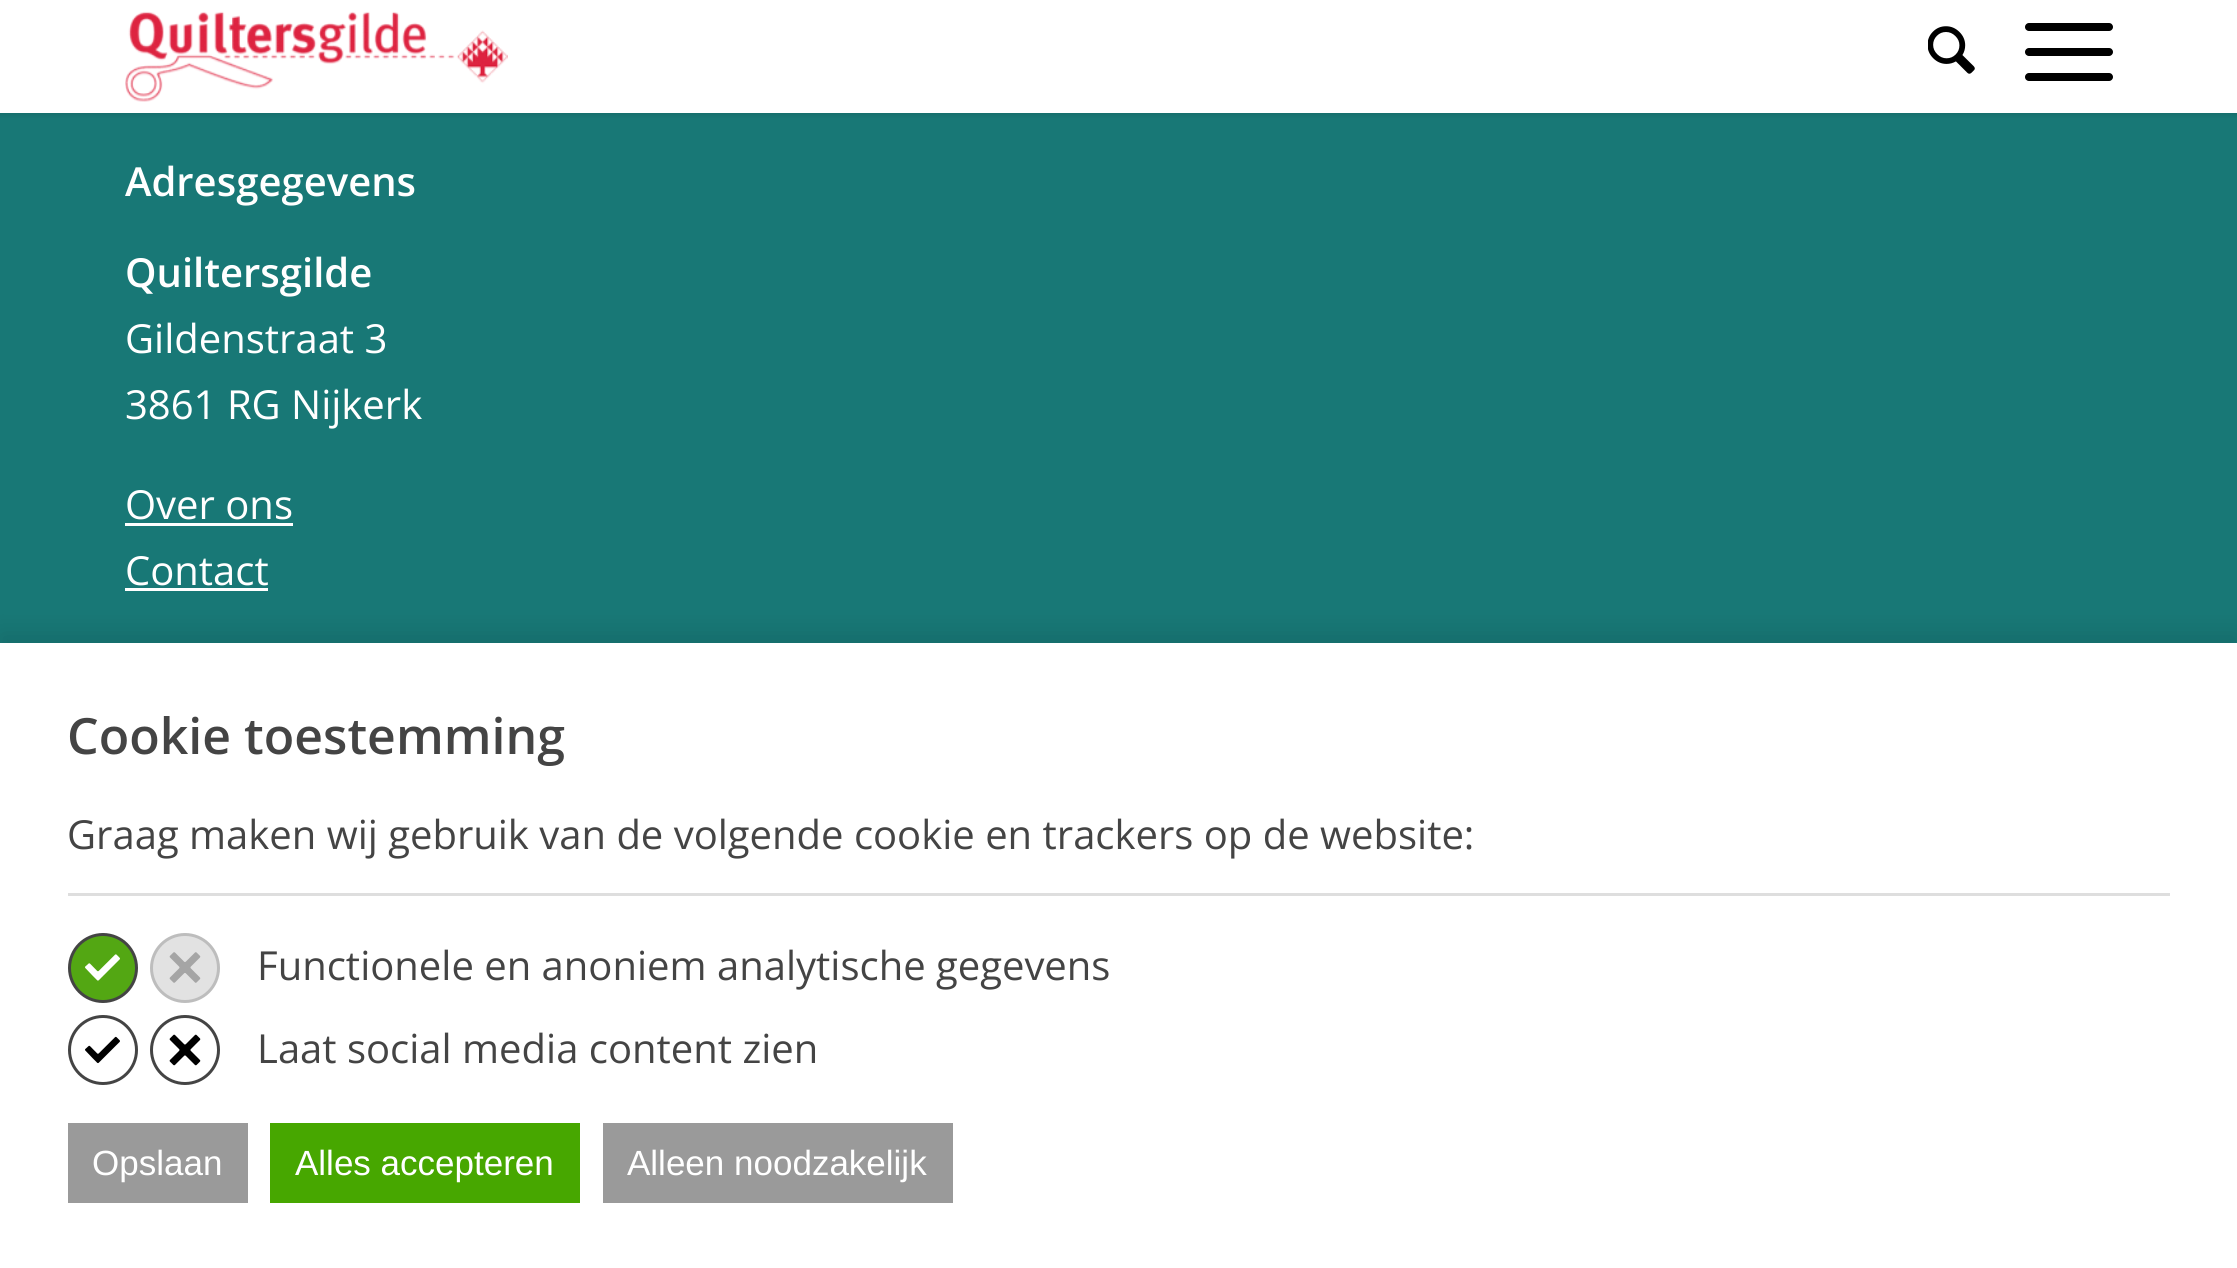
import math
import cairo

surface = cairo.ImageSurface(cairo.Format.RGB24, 2237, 1268)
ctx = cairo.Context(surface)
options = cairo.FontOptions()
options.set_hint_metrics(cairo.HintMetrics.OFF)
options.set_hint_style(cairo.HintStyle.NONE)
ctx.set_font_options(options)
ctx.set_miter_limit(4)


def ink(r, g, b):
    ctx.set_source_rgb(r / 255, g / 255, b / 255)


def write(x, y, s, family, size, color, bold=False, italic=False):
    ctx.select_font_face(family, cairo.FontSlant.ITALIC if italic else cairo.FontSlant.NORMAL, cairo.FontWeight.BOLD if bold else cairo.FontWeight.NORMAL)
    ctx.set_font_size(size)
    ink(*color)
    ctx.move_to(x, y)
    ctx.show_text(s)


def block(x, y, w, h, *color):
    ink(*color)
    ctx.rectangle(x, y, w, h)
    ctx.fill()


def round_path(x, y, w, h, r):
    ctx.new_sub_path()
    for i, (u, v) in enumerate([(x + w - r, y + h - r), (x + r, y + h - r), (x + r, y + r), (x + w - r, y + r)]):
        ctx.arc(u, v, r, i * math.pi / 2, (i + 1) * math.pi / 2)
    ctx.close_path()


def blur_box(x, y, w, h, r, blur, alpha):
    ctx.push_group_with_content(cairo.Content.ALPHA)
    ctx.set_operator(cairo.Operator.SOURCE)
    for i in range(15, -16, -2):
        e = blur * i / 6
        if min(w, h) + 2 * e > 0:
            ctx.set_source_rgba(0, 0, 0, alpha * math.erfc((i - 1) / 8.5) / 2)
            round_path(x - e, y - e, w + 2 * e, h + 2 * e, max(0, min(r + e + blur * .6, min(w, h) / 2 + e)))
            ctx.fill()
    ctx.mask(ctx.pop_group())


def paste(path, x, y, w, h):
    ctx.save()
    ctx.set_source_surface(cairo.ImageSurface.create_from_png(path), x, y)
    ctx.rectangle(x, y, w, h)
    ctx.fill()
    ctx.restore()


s1 = dict(family="Open Sans SemiBold", size=40, color=(255, 255, 255))
s2 = dict(family="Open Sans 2 SemiBold", size=40, color=(255, 255, 255))
s3 = dict(family="Open Sans", size=40, color=(255, 255, 255))
s4 = dict(family="Open Sans SemiBold", size=50, color=(68, 68, 68))
s5 = dict(family="Open Sans", size=40, color=(68, 68, 68))
s6 = dict(family="Liberation Sans", size=35, color=(255, 255, 255))

ink(24, 120, 118)
ctx.paint()
ink(0, 0, 0)
blur_box(-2, -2, 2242, 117, 0, 2.5, 0.1)
block(0, 0, 2237, 113, 255, 255, 255)
paste("pic1.png", 125, 11, 383, 91)
paste("pic2.png", 1928, 26, 47, 48)
ink(0, 0, 0)
round_path(2025, 48, 88, 8, 4)
ctx.fill()
round_path(2025, 23, 88, 8, 4)
ctx.fill()
round_path(2025, 73, 88, 8, 4)
ctx.fill()
write(125, 196, "Adresgegevens", **s1)
write(125, 287, "Quiltersgilde", **s2)
write(125, 353, "Gildenstraat 3", **s3)
write(125, 419, "3861 RG Nijkerk", **s3)
write(125, 519, "Over ons", **s3)
block(125, 523, 168, 3, 255, 255, 255)
write(125, 585, "Contact", **s3)
block(125, 588, 143, 3, 255, 255, 255)
ink(0, 0, 0)
blur_box(0, 633, 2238, 627, 0, 12.5, 0.1)
block(0, 643, 2237, 625, 255, 255, 255)
write(67, 754, "Cookie toestemming", **s4)
block(68, 893, 2102, 3, 222, 222, 222)
write(67, 849, "Graag maken wij gebruik van de volgende cookie en trackers op de website:", **s5)
ink(83, 167, 19)
ctx.new_path()
ctx.arc(103, 968, 33.5, 0, 2 * math.pi)
ctx.fill_preserve()
ink(68, 68, 68)
ctx.set_line_width(3)
ctx.stroke()
paste("pic3.png", 85, 954, 35, 27)
ink(226, 226, 226)
ctx.arc(185, 968, 33.5, 0, 2 * math.pi)
ctx.fill_preserve()
ink(189, 189, 189)
ctx.stroke()
paste("pic4.png", 169, 952, 32, 31)
write(257, 980, "Functionele en anoniem analytische gegevens", **s5)
ctx.new_path()
ctx.arc(103, 1050, 33.5, 0, 2 * math.pi)
ctx.stroke()
paste("pic5.png", 85, 1036, 35, 28)
ctx.arc(185, 1050, 33.5, 0, 2 * math.pi)
ctx.stroke()
paste("pic6.png", 169, 1034, 32, 32)
write(257, 1063, "Laat social media content zien", **s5)
block(68, 1123, 180, 80, 154, 154, 154)
write(92, 1175, "Opslaan", **s6)
block(270, 1123, 310, 80, 71, 167, 0)
write(295, 1175, "Alles accepteren", **s6)
block(603, 1123, 350, 80, 154, 154, 154)
write(627, 1175, "Alleen noodzakelijk", **s6)
surface.write_to_png("screenshot.png")
